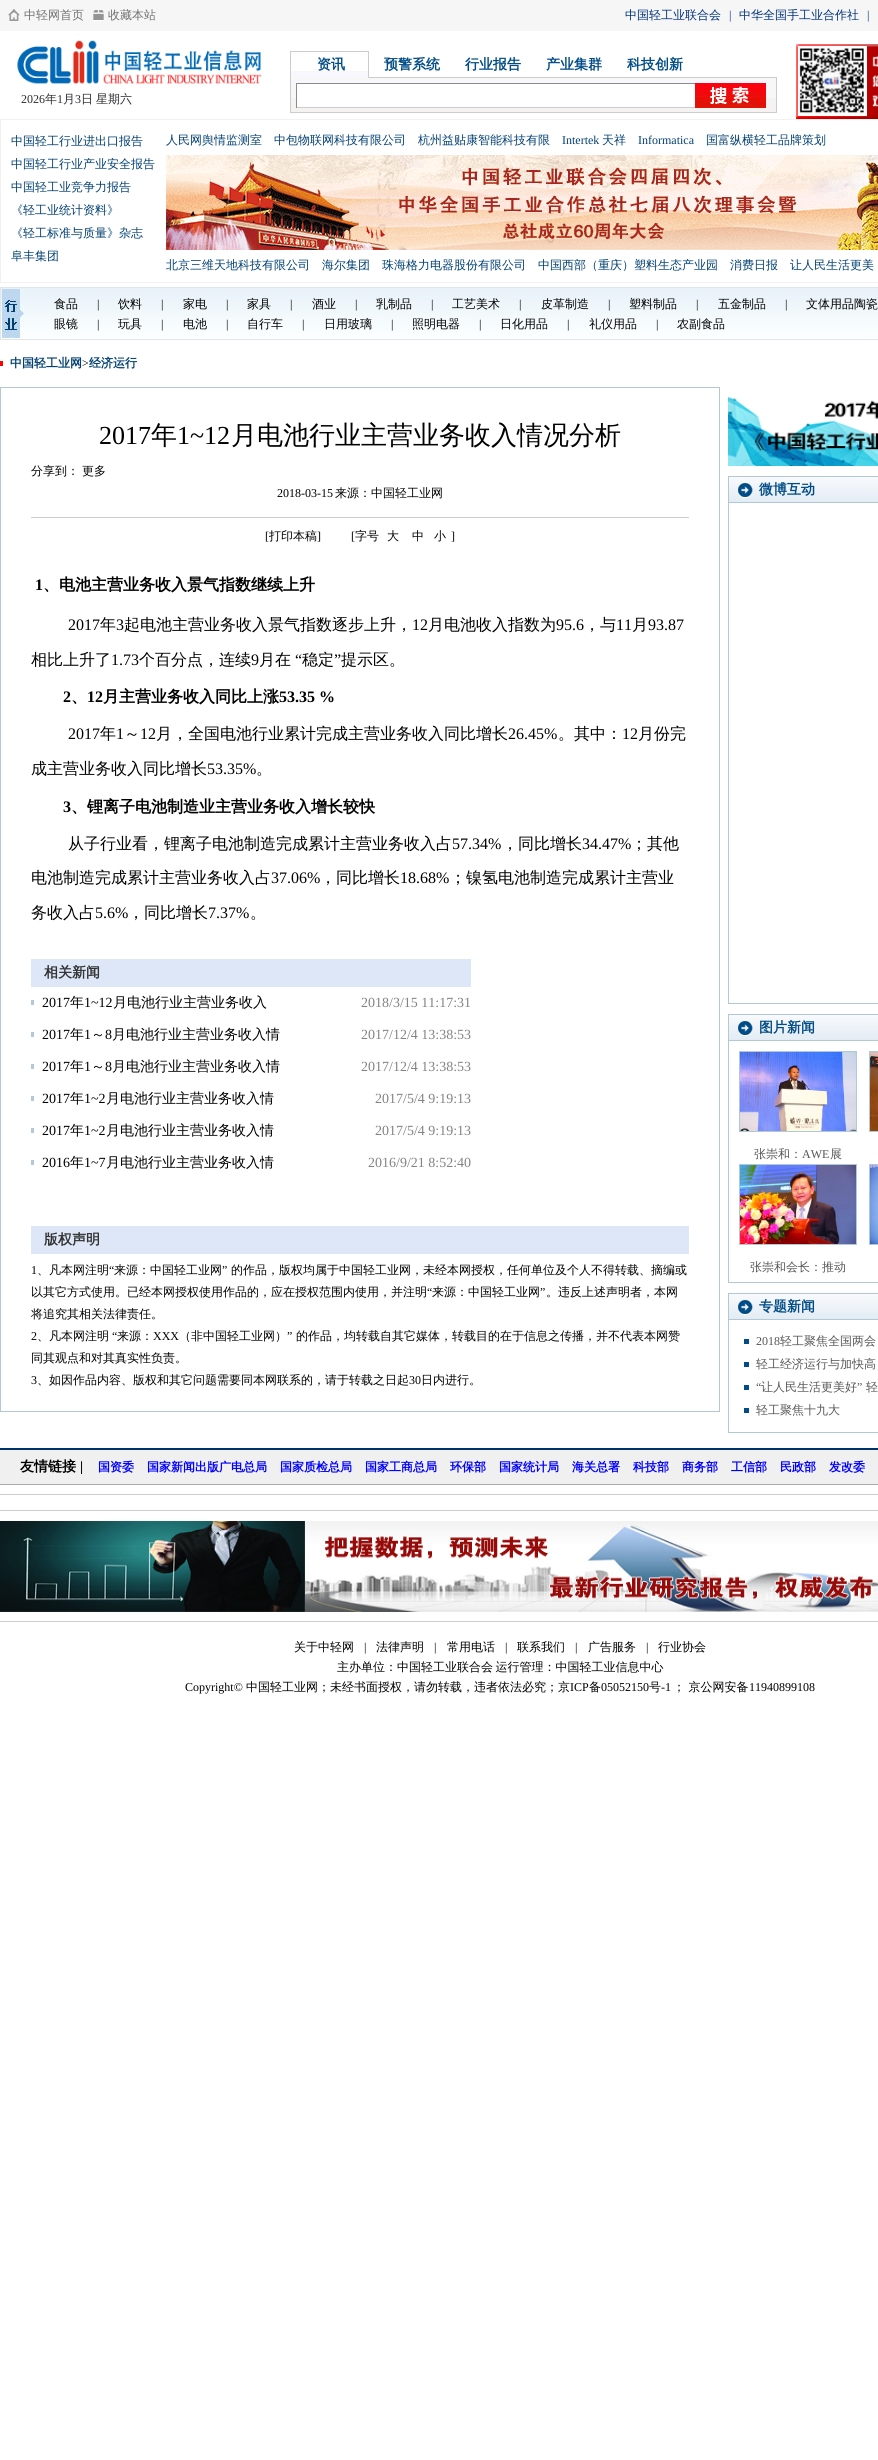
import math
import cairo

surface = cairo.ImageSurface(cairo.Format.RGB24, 878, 2460)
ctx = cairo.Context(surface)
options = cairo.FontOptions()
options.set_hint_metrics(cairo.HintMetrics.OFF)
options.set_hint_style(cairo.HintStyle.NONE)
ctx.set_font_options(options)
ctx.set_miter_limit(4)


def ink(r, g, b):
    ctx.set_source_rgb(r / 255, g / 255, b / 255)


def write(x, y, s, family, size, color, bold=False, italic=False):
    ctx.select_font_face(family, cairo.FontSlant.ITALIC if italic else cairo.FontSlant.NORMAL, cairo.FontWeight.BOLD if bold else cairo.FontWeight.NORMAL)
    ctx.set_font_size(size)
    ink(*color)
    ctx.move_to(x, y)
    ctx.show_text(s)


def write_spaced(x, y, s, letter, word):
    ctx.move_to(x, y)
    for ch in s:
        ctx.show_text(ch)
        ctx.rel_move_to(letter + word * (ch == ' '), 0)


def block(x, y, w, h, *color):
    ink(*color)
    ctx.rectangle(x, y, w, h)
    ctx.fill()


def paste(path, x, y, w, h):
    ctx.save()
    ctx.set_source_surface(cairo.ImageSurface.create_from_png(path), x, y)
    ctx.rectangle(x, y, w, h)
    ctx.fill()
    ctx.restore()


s1 = dict(family="WenQuanYi Zen Hei Medium", size=12, color=(113, 113, 113))
s2 = dict(family="WenQuanYi Zen Hei Medium", size=12, color=(0, 50, 123))
s3 = dict(family="Liberation Serif", size=12, color=(0, 50, 123))
s4 = dict(family="WenQuanYi Zen Hei", size=14, color=(1, 76, 134), bold=True)
s5 = dict(family="Liberation Serif", size=12, color=(43, 44, 46))
s6 = dict(family="WenQuanYi Zen Hei Medium", size=12, color=(43, 44, 46))
s7 = dict(family="WenQuanYi Zen Hei Medium", size=12, color=(1, 64, 115))
s8 = dict(family="Liberation Serif", size=12, color=(1, 64, 115))
s9 = dict(family="WenQuanYi Zen Hei Medium", size=12, color=(0, 0, 0))
s10 = dict(family="Liberation Serif", size=12, color=(0, 0, 0))
s11 = dict(family="WenQuanYi Zen Hei", size=12, color=(1, 64, 115), bold=True)
s12 = dict(family="Liberation Serif", size=26, color=(0, 0, 0))
s13 = dict(family="WenQuanYi Zen Hei Medium", size=26, color=(0, 0, 0))
s14 = dict(family="Liberation Serif", size=16, color=(0, 0, 0), bold=True)
s15 = dict(family="WenQuanYi Zen Hei", size=16, color=(0, 0, 0), bold=True)
s16 = dict(family="Liberation Serif", size=16, color=(0, 0, 0))
s17 = dict(family="WenQuanYi Zen Hei Medium", size=16, color=(0, 0, 0))
s18 = dict(family="WenQuanYi Zen Hei", size=14, color=(51, 51, 51), bold=True)
s19 = dict(family="Liberation Serif", size=14, color=(0, 0, 0))
s20 = dict(family="WenQuanYi Zen Hei Medium", size=14, color=(0, 0, 0))
s21 = dict(family="Liberation Serif", size=14, color=(131, 131, 131))
s22 = dict(family="WenQuanYi Zen Hei Medium", size=12, color=(86, 86, 86))
s23 = dict(family="Liberation Serif", size=12, color=(86, 86, 86))
s24 = dict(family="WenQuanYi Zen Hei", size=14, color=(0, 0, 0), bold=True)
s25 = dict(family="Liberation Serif", size=14, color=(0, 0, 0), bold=True)
s26 = dict(family="WenQuanYi Zen Hei", size=12, color=(0, 0, 255), bold=True)

ink(255, 255, 255)
ctx.paint()
block(0, 0, 878, 31, 246, 246, 246)
paste("pic1.png", 8, 9, 12, 12)
write(24, 19, "中轻网首页", **s1)
paste("pic2.png", 93, 10, 11, 11)
write(108, 19, "收藏本站", **s1)
write(625, 19, "中国轻工业联合会", **s2)
write(729, 19, "|", **s3)
write(739, 19, "中华全国手工业合作社", **s2)
write(867, 19, "|", **s3)
paste("pic4.png", 291, 78, 485, 34)
ctx.rectangle(290.5, 77.5, 486, 35)
ink(204, 204, 204)
ctx.set_line_width(1)
ctx.stroke()
paste("pic3.png", 290, 51, 79, 27)
write(317, 69, "资讯", **s4)
write(384, 69, "预警系统", **s4)
write(465, 69, "行业报告", **s4)
write(546, 69, "产业集群", **s4)
write(627, 69, "科技创新", **s4)
block(297, 84, 398, 23, 255, 255, 255)
block(296, 83, 399, 1, 140, 140, 140)
block(296, 107, 399, 1, 203, 204, 206)
block(296, 83, 1, 25, 140, 140, 140)
paste("pic5.png", 695, 83, 71, 25)
paste("pic6.png", 796, 44, 82, 75)
paste("pic7.png", 17, 40, 245, 44)
write(21, 103, "2026", **s5)
write(45, 103, "年", **s6)
write(57, 103, "1", **s5)
write(63, 103, "月", **s6)
write(75, 103, "3", **s5)
write(81, 103, "日", **s6)
write(96, 103, "星期六", **s6)
ctx.rectangle(0.5, 119.5, 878, 163)
ink(241, 241, 241)
ctx.stroke()
write(11, 145, "中国轻工行业进出口报告", **s7)
write(11, 168, "中国轻工行业产业安全报告", **s7)
write(11, 191, "中国轻工业竞争力报告", **s7)
write(11, 214, "《轻工业统计资料》", **s7)
write(11, 237, "《轻工标准与质量》杂志", **s7)
write(11, 260, "阜丰集团", **s7)
write(166, 144, "人民网舆情监测室", **s7)
write(274, 144, "中包物联网科技有限公司", **s7)
write(418, 144, "杭州益贴康智能科技有限", **s7)
write(562, 144, "Intertek", **s8)
write(602, 144, "天祥", **s7)
write(638, 144, "Informatica", **s8)
write(706, 144, "国富纵横轻工品牌策划", **s7)
paste("pic8.png", 166, 155, 712, 95)
write(166, 269, "北京三维天地科技有限公司", **s7)
write(322, 269, "海尔集团", **s7)
write(382, 269, "珠海格力电器股份有限公司", **s7)
write(538, 269, "中国西部（重庆）塑料生态产业园", **s7)
write(730, 269, "消费日报", **s7)
write(790, 269, "让人民生活更美", **s7)
paste("pic9.png", 1, 288, 877, 50)
ctx.rectangle(0.5, 287.5, 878, 52)
ink(225, 230, 234)
ctx.stroke()
paste("pic10.png", 2, 289, 22, 49)
write(54, 308, "食品", **s9)
write(97, 308, "|", **s10)
write(118, 308, "饮料", **s9)
write(161, 308, "|", **s10)
write(183, 308, "家电", **s9)
write(226, 308, "|", **s10)
write(247, 308, "家具", **s9)
write(290, 308, "|", **s10)
write(312, 308, "酒业", **s9)
write(355, 308, "|", **s10)
write(376, 308, "乳制品", **s9)
write(431, 308, "|", **s10)
write(452, 308, "工艺美术", **s9)
write(519, 308, "|", **s10)
write(541, 308, "皮革制造", **s9)
write(608, 308, "|", **s10)
write(629, 308, "塑料制品", **s9)
write(696, 308, "|", **s10)
write(718, 308, "五金制品", **s9)
write(785, 308, "|", **s10)
write(806, 308, "文体用品陶瓷", **s9)
write(54, 328, "眼镜", **s9)
write(97, 328, "|", **s10)
write(118, 328, "玩具", **s9)
write(161, 328, "|", **s10)
write(183, 328, "电池", **s9)
write(226, 328, "|", **s10)
write(247, 328, "自行车", **s9)
write(302, 328, "|", **s10)
write(324, 328, "日用玻璃", **s9)
write(391, 328, "|", **s10)
write(412, 328, "照明电器", **s9)
write(479, 328, "|", **s10)
write(500, 328, "日化用品", **s9)
write(567, 328, "|", **s10)
write(589, 328, "礼仪用品", **s9)
write(656, 328, "|", **s10)
write(677, 328, "农副食品", **s9)
block(0, 361, 3, 5, 255, 0, 0)
write(10, 367, "中国轻工业网", **s11)
write(82, 367, ">", **s10)
write(89, 367, "经济运行", **s11)
ctx.rectangle(0.5, 387.5, 719, 1024)
ink(177, 200, 214)
ctx.stroke()
write(99, 444, "2017", **s12)
write(151, 444, "年", **s13)
write(177, 444, "1~12", **s12)
write(231, 444, "月电池行业主营业务收入情况分析", **s13)
write(31, 475, "分享到：", **s9)
write(82, 475, "更多", **s9)
write(277, 497, "2018-03-15", **s10)
write(335, 497, "来源：中国轻工业网", **s9)
block(31, 517, 658, 1, 204, 204, 204)
write(265, 540, "[", **s10)
write(269, 540, "打印本稿", **s9)
write(317, 540, "]", **s10)
write(351, 540, "[", **s10)
write(355, 540, "字号", **s9)
write(387, 540, "大", **s9)
write(412, 540, "中", **s9)
write(434, 540, "小", **s9)
write(451, 540, "]", **s10)
write(35, 590, "1", **s14)
write(43, 590, "、电池主营业务收入景气指数继续上升", **s15)
write(68, 630, "2017", **s16)
write(100, 630, "年", **s17)
write(116, 630, "3", **s16)
write(124, 630, "起电池主营业务收入景气指数逐步上升，", **s17)
write(412, 630, "12", **s16)
write(428, 630, "月电池收入指数为", **s17)
write(556, 630, "95.6", **s16)
write(584, 630, "，与", **s17)
write(616, 630, "11", **s16)
write(632, 630, "月", **s17)
write(648, 630, "93.87", **s16)
write(31, 665, "相比上升了", **s17)
write(111, 665, "1.73", **s16)
write(139, 665, "个百分点，连续", **s17)
write(251, 665, "9", **s16)
write(259, 665, "月在", **s17)
write(295, 665, "“", **s16)
write(302, 665, "稳定", **s17)
write(334, 665, "”", **s16)
write(341, 665, "提示区。", **s17)
write(63, 702, "2", **s14)
write(71, 702, "、", **s15)
write(87, 702, "12", **s14)
write(103, 702, "月主营业务收入同比上涨", **s15)
write(279, 702, "53.35 %", **s14)
write(68, 739, "2017", **s16)
write(100, 739, "年", **s17)
write(116, 739, "1", **s16)
write(124, 739, "～", **s17)
write(140, 739, "12", **s16)
write(156, 739, "月，全国电池行业累计完成主营业务收入同比增长", **s17)
write(508, 739, "26.45%", **s16)
write(558, 739, "。其中：", **s17)
write(622, 739, "12", **s16)
write(638, 739, "月份完", **s17)
write(31, 774, "成主营业务收入同比增长", **s17)
write(207, 774, "53.35%", **s16)
write(256, 774, "。", **s17)
write(63, 812, "3", **s14)
write(71, 812, "、锂离子电池制造业主营业务收入增长较快", **s15)
write(68, 849, "从子行业看，锂离子电池制造完成累计主营业务收入占", **s17)
write(452, 849, "57.34%", **s16)
write(502, 849, "，同比增长", **s17)
write(582, 849, "34.47%", **s16)
write(631, 849, "；其他", **s17)
write(31, 883, "电池制造完成累计主营业务收入占", **s17)
write(271, 883, "37.06%", **s16)
write(320, 883, "，同比增长", **s17)
write(400, 883, "18.68%", **s16)
write(450, 883, "；镍氢电池制造完成累计主营业", **s17)
write(31, 918, "务收入占", **s17)
write(95, 918, "5.6%", **s16)
write(128, 918, "，同比增长", **s17)
write(208, 918, "7.37%", **s16)
write(250, 918, "。", **s17)
block(31, 959, 440, 28, 221, 231, 248)
write(44, 977, "相关新闻", **s18)
block(31, 1000, 3, 5, 177, 200, 215)
write(42, 1007, "2017", **s19)
write(70, 1007, "年", **s20)
write(84, 1007, "1~12", **s19)
write(113, 1007, "月电池行业主营业务收入", **s20)
write(361, 1007, "2018/3/15 11:17:31", **s21)
block(31, 1032, 3, 5, 177, 200, 215)
write(42, 1039, "2017", **s19)
write(70, 1039, "年", **s20)
write(84, 1039, "1", **s19)
write(91, 1039, "～", **s20)
write(105, 1039, "8", **s19)
write(112, 1039, "月电池行业主营业务收入情", **s20)
write(361, 1039, "2017/12/4 13:38:53", **s21)
block(31, 1064, 3, 5, 177, 200, 215)
write(42, 1071, "2017", **s19)
write(70, 1071, "年", **s20)
write(84, 1071, "1", **s19)
write(91, 1071, "～", **s20)
write(105, 1071, "8", **s19)
write(112, 1071, "月电池行业主营业务收入情", **s20)
write(361, 1071, "2017/12/4 13:38:53", **s21)
block(31, 1096, 3, 5, 177, 200, 215)
write(42, 1103, "2017", **s19)
write(70, 1103, "年", **s20)
write(84, 1103, "1~2", **s19)
write(106, 1103, "月电池行业主营业务收入情", **s20)
write(375, 1103, "2017/5/4 9:19:13", **s21)
block(31, 1128, 3, 5, 177, 200, 215)
write(42, 1135, "2017", **s19)
write(70, 1135, "年", **s20)
write(84, 1135, "1~2", **s19)
write(106, 1135, "月电池行业主营业务收入情", **s20)
write(375, 1135, "2017/5/4 9:19:13", **s21)
block(31, 1160, 3, 5, 177, 200, 215)
write(42, 1167, "2016", **s19)
write(70, 1167, "年", **s20)
write(84, 1167, "1~7", **s19)
write(106, 1167, "月电池行业主营业务收入情", **s20)
write(368, 1167, "2016/9/21 8:52:40", **s21)
block(31, 1226, 658, 28, 221, 231, 248)
write(44, 1244, "版权声明", **s18)
write(31, 1274, "1", **s10)
write(37, 1274, "、凡本网注明", **s9)
write(109, 1274, "“", **s10)
write(114, 1274, "来源：中国轻工业网", **s9)
write(222, 1274, "”", **s10)
write(231, 1274, "的作品，版权均属于中国轻工业网，未经本网授权，任何单位及个人不得转载、摘编或", **s9)
write(31, 1296, "以其它方式使用。已经本网授权使用作品的，应在授权范围内使用，并注明", **s9)
write(427, 1296, "“", **s10)
write(432, 1296, "来源：中国轻工业网", **s9)
write(540, 1296, "”", **s10)
write(546, 1296, "。违反上述声明者，本网", **s9)
write(31, 1318, "将追究其相关法律责任。", **s9)
write(31, 1340, "2", **s10)
write(37, 1340, "、凡本网注明", **s9)
write(112, 1340, "“", **s10)
write(117, 1340, "来源：", **s9)
write(153, 1340, "XXX", **s10)
write(179, 1340, "（非中国轻工业网）", **s9)
write(287, 1340, "”", **s10)
write(296, 1340, "的作品，均转载自其它媒体，转载目的在于信息之传播，并不代表本网赞", **s9)
write(31, 1362, "同其观点和对其真实性负责。", **s9)
write(31, 1384, "3", **s10)
write(37, 1384, "、如因作品内容、版权和其它问题需要同本网联系的，请于转载之日起", **s9)
write(409, 1384, "30", **s10)
write(421, 1384, "日内进行。", **s9)
paste("pic11.png", 728, 396, 150, 70)
ctx.rectangle(728.5, 476.5, 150, 527)
ink(177, 200, 215)
ctx.stroke()
paste("pic12.png", 729, 477, 149, 25)
block(729, 502, 149, 1, 177, 200, 215)
paste("pic13.png", 738, 483, 15, 15)
write(759, 494, "微博互动", **s4)
ctx.rectangle(728.5, 1014.5, 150, 268)
ink(177, 200, 215)
ctx.stroke()
paste("pic12.png", 729, 1015, 149, 25)
block(729, 1040, 149, 1, 177, 200, 215)
paste("pic13.png", 738, 1021, 15, 15)
write(759, 1032, "图片新闻", **s4)
ctx.rectangle(869.5, 1051.5, 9, 80)
ink(177, 200, 215)
ctx.stroke()
paste("pic14.png", 870, 1052, 8, 79)
ctx.rectangle(739.5, 1051.5, 117, 80)
ctx.stroke()
paste("pic15.png", 740, 1052, 116, 79)
write(754, 1158, "张崇和：", **s22)
write(802, 1158, "AWE", **s23)
write(830, 1158, "展", **s22)
ctx.rectangle(869.5, 1164.5, 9, 80)
ink(177, 200, 215)
ctx.stroke()
paste("pic16.png", 870, 1165, 8, 79)
ctx.rectangle(739.5, 1164.5, 117, 80)
ctx.stroke()
paste("pic17.png", 740, 1165, 116, 79)
write(750, 1271, "张崇和会长：推动", **s22)
ctx.rectangle(728.5, 1293.5, 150, 139)
ink(177, 200, 215)
ctx.stroke()
paste("pic12.png", 729, 1294, 149, 25)
block(729, 1319, 149, 1, 177, 200, 215)
paste("pic13.png", 738, 1300, 15, 15)
write(759, 1311, "专题新闻", **s4)
block(744, 1339, 5, 5, 0, 76, 134)
write(756, 1345, "2018", **s23)
write(780, 1345, "轻工聚焦全国两会", **s22)
block(744, 1362, 5, 5, 0, 76, 134)
write(756, 1368, "轻工经济运行与加快高", **s22)
block(744, 1385, 5, 5, 0, 76, 134)
write(756, 1391, "“", **s23)
write(761, 1391, "让人民生活更美好", **s22)
write(857, 1391, "”", **s23)
write(866, 1391, "轻", **s22)
block(744, 1408, 5, 5, 0, 76, 134)
write(756, 1414, "轻工聚焦十九大", **s22)
block(0, 1450, 878, 34, 240, 240, 240)
block(0, 1448, 878, 2, 0, 51, 101)
block(0, 1484, 878, 1, 171, 171, 171)
write(20, 1471, "友情链接", **s24)
write(80, 1471, "|", **s25)
write(98, 1471, "国资委", **s26)
write(147, 1471, "国家新闻出版广电总局", **s26)
write(280, 1471, "国家质检总局", **s26)
write(365, 1471, "国家工商总局", **s26)
write(450, 1471, "环保部", **s26)
write(499, 1471, "国家统计局", **s26)
write(572, 1471, "海关总署", **s26)
write(633, 1471, "科技部", **s26)
write(682, 1471, "商务部", **s26)
write(731, 1471, "工信部", **s26)
write(780, 1471, "民政部", **s26)
write(829, 1471, "发改委", **s26)
block(0, 1494, 878, 1, 206, 206, 206)
block(0, 1510, 878, 1, 206, 206, 206)
block(0, 1621, 878, 1, 206, 206, 206)
paste("pic18.png", 0, 1521, 878, 91)
write(294, 1651, "关于中轻网", **s9)
write(364, 1651, "|", **s10)
write(376, 1651, "法律声明", **s9)
write(434, 1651, "|", **s10)
write(447, 1651, "常用电话", **s9)
write(505, 1651, "|", **s10)
write(517, 1651, "联系我们", **s9)
write(575, 1651, "|", **s10)
write(588, 1651, "广告服务", **s9)
write(646, 1651, "|", **s10)
write(658, 1651, "行业协会", **s9)
write_spaced(337, 1671, "主办单位：中国轻工业联合会 运行管理：中国轻工业信息中心", 0, -1)
write(185, 1691, "Copyright©", **s10)
write(246, 1691, "中国轻工业网；未经书面授权，请勿转载，违者依法必究；京", **s9)
write(570, 1691, "ICP", **s10)
write(589, 1691, "备", **s9)
write(601, 1691, "05052150", **s10)
write(649, 1691, "号", **s9)
write(661, 1691, "-1", **s10)
write(673, 1691, "； 京公网安备", **s9)
write(749, 1691, "11940899108", **s10)
surface.write_to_png("screenshot.png")
